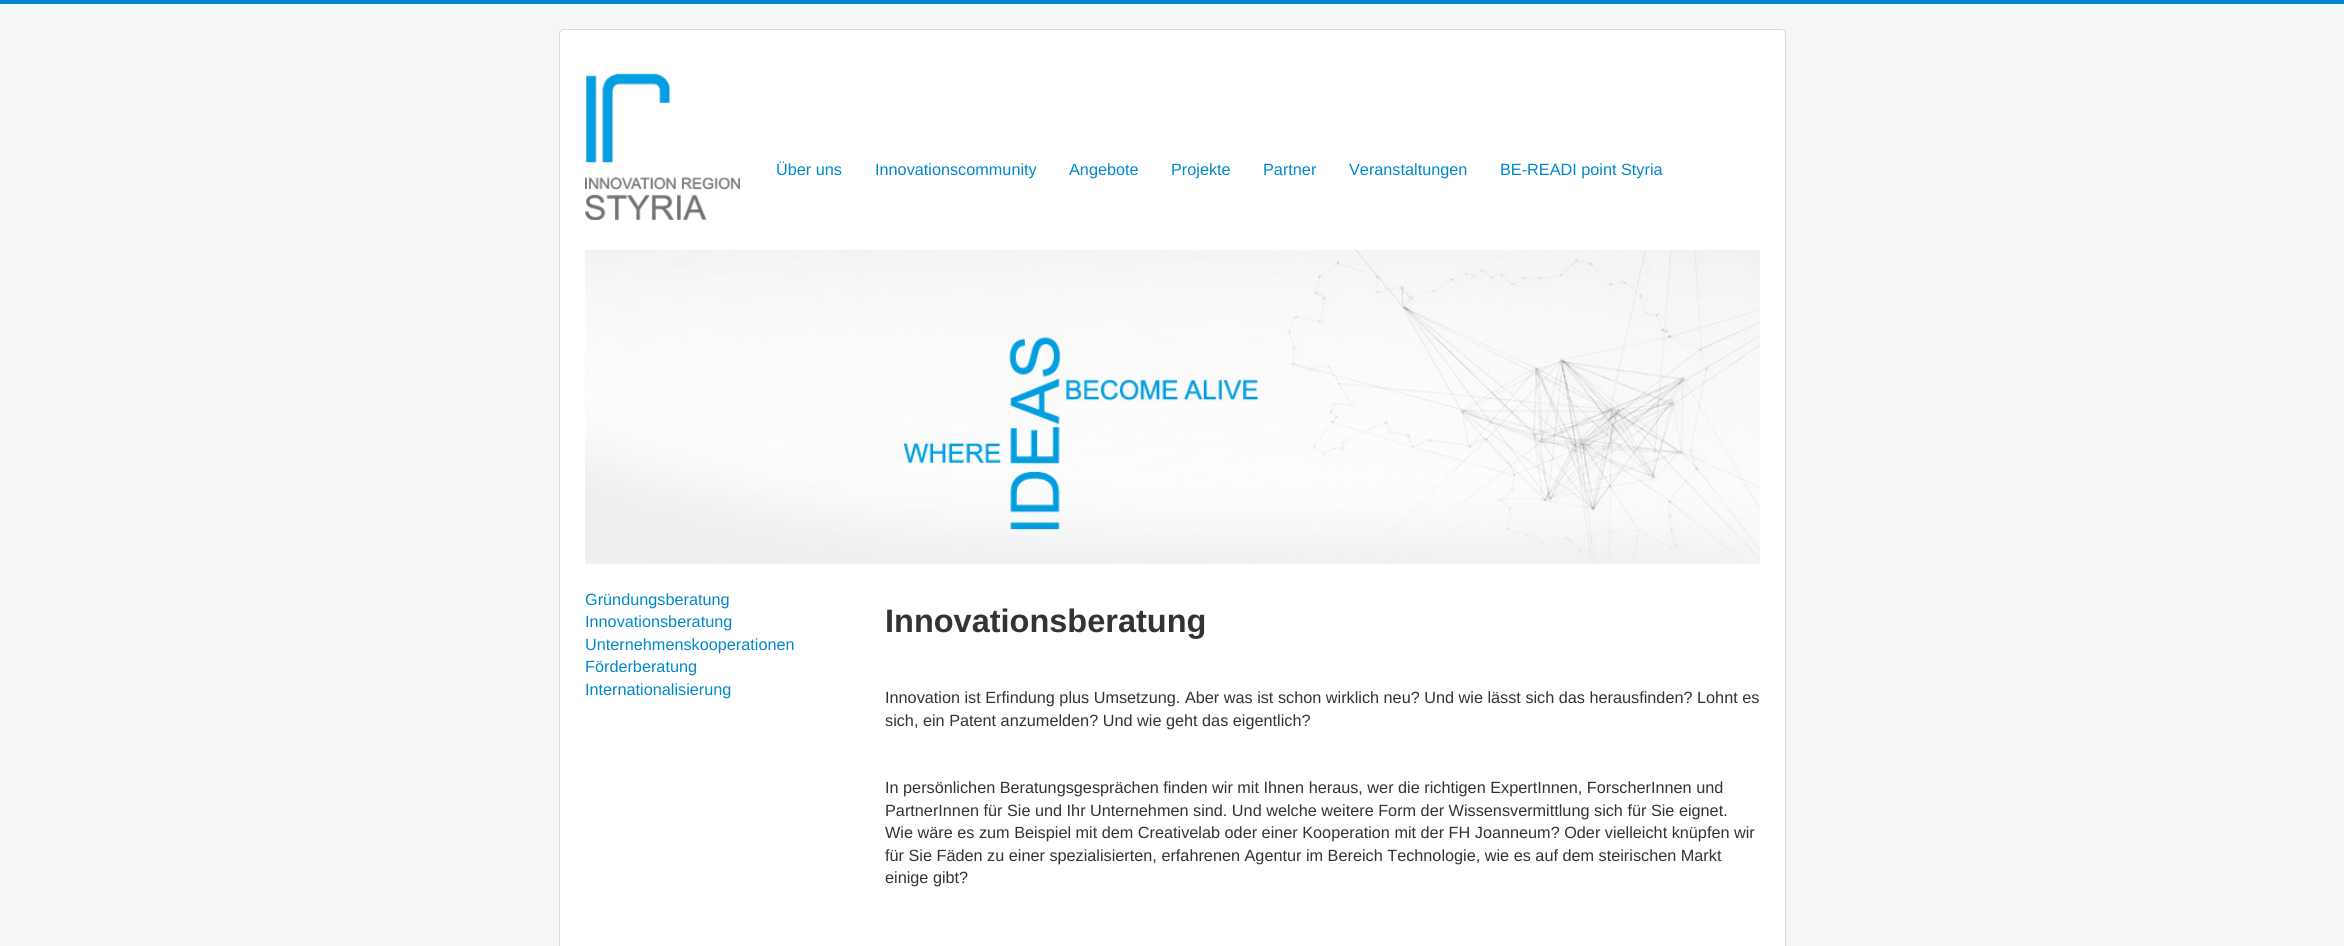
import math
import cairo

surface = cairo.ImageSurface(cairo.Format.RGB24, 2344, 946)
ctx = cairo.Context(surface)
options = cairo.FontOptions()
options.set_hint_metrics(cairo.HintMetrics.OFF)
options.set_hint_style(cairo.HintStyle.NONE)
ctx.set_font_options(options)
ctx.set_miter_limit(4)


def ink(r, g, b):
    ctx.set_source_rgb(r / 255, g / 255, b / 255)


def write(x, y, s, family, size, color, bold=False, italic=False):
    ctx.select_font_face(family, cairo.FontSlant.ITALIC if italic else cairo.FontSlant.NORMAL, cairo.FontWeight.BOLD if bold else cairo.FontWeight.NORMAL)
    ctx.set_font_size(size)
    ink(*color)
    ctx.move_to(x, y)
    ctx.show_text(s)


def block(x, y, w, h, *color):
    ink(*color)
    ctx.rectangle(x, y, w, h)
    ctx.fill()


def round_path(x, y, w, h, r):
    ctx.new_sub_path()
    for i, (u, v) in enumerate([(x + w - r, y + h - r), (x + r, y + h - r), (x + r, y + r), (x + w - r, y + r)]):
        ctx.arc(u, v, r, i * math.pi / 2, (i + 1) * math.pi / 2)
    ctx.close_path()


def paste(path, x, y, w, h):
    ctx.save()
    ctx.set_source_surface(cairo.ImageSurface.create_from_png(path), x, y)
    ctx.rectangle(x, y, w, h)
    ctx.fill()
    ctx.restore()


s1 = dict(family="Liberation Sans", size=16.25, color=(0, 136, 204))
s2 = dict(family="Liberation Sans", size=32.5, color=(51, 51, 51), bold=True)
s3 = dict(family="Liberation Sans", size=16.25, color=(51, 51, 51))

ink(244, 246, 247)
ctx.paint()
block(0, 0, 2344, 4, 0, 136, 204)
ink(255, 255, 255)
round_path(559, 29, 1227, 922, 5)
ctx.fill()
round_path(559.5, 29.5, 1226, 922, 4.5)
ctx.set_source_rgba(0, 0, 0, 0.15)
ctx.set_line_width(1)
ctx.stroke()
paste("pic1.png", 585, 73, 155, 147)
write(776, 175, "Über uns", **s1)
write(875, 175, "Innovationscommunity", **s1)
write(1069, 175, "Angebote", **s1)
write(1171, 175, "Projekte", **s1)
write(1263, 175, "Partner", **s1)
write(1349, 175, "Veranstaltungen", **s1)
write(1500, 175, "BE-READI point Styria", **s1)
paste("pic2.png", 585, 250, 1175, 314)
write(585, 605, "Gründungsberatung", **s1)
write(585, 627, "Innovationsberatung", **s1)
write(585, 650, "Unternehmenskooperationen", **s1)
write(585, 672, "Förderberatung", **s1)
write(585, 695, "Internationalisierung", **s1)
write(885, 632, "Innovationsberatung", **s2)
write(885, 703, "Innovation ist Erfindung plus Umsetzung. Aber was ist schon wirklich neu? Und wie lässt sich das herausfinden? Lohnt es", **s3)
write(885, 726, "sich, ein Patent anzumelden? Und wie geht das eigentlich?", **s3)
write(885, 793, "In persönlichen Beratungsgesprächen finden wir mit Ihnen heraus, wer die richtigen ExpertInnen, ForscherInnen und", **s3)
write(885, 816, "PartnerInnen für Sie und Ihr Unternehmen sind. Und welche weitere Form der Wissensvermittlung sich für Sie eignet.", **s3)
write(885, 838, "Wie wäre es zum Beispiel mit dem Creativelab oder einer Kooperation mit der FH Joanneum? Oder vielleicht knüpfen wir", **s3)
write(885, 861, "für Sie Fäden zu einer spezialisierten, erfahrenen Agentur im Bereich Technologie, wie es auf dem steirischen Markt", **s3)
write(885, 883, "einige gibt?", **s3)
surface.write_to_png("screenshot.png")
